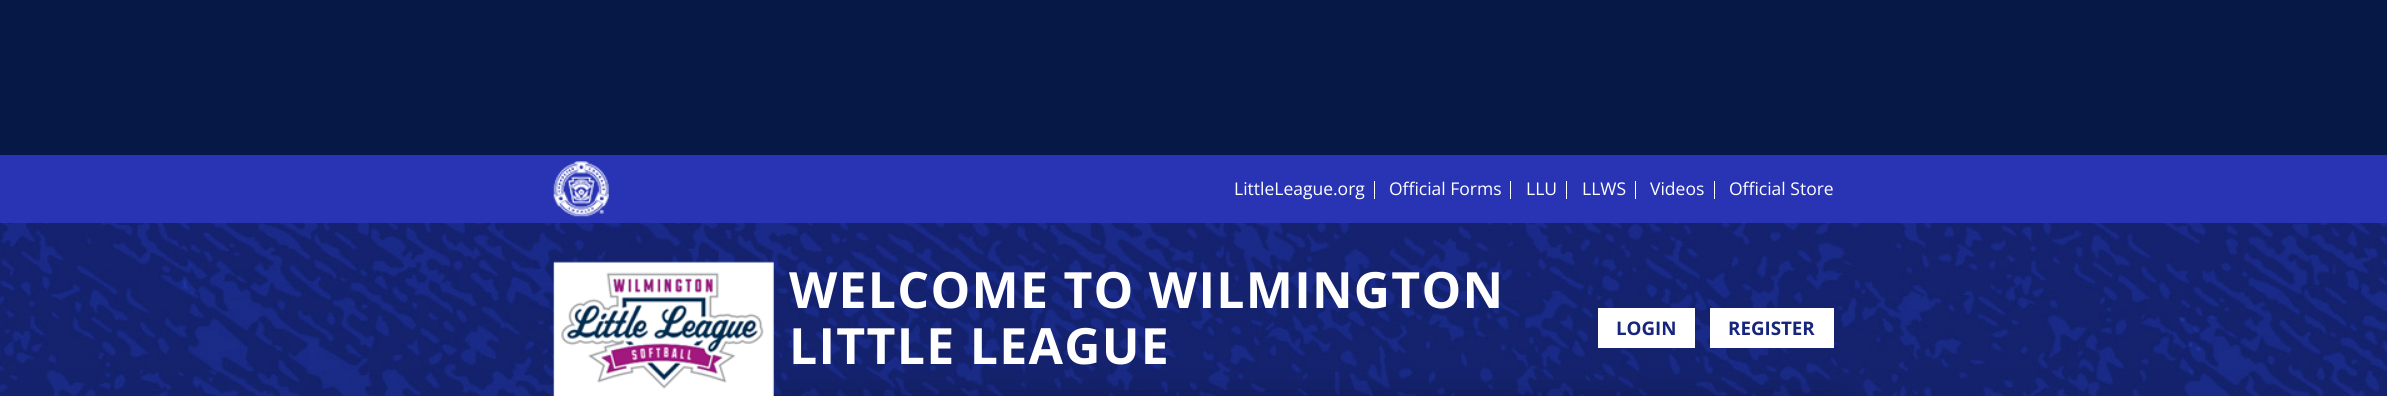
import math
import cairo

surface = cairo.ImageSurface(cairo.Format.RGB24, 2387, 396)
ctx = cairo.Context(surface)
options = cairo.FontOptions()
options.set_hint_metrics(cairo.HintMetrics.OFF)
options.set_hint_style(cairo.HintStyle.NONE)
ctx.set_font_options(options)
ctx.set_miter_limit(4)


def ink(r, g, b):
    ctx.set_source_rgb(r / 255, g / 255, b / 255)


def write(x, y, s, family, size, color, bold=False, italic=False):
    ctx.select_font_face(family, cairo.FontSlant.ITALIC if italic else cairo.FontSlant.NORMAL, cairo.FontWeight.BOLD if bold else cairo.FontWeight.NORMAL)
    ctx.set_font_size(size)
    ink(*color)
    ctx.move_to(x, y)
    ctx.show_text(s)


def write_spaced(x, y, s, letter, word):
    ctx.move_to(x, y)
    for ch in s:
        ctx.show_text(ch)
        ctx.rel_move_to(letter + word * (ch == ' '), 0)


def block(x, y, w, h, *color):
    ink(*color)
    ctx.rectangle(x, y, w, h)
    ctx.fill()


def round_path(x, y, w, h, r):
    ctx.new_sub_path()
    for i, (u, v) in enumerate([(x + w - r, y + h - r), (x + r, y + h - r), (x + r, y + r), (x + w - r, y + r)]):
        ctx.arc(u, v, r, i * math.pi / 2, (i + 1) * math.pi / 2)
    ctx.close_path()


def blur_box(x, y, w, h, r, blur, alpha):
    ctx.push_group_with_content(cairo.Content.ALPHA)
    ctx.set_operator(cairo.Operator.SOURCE)
    for i in range(15, -16, -2):
        e = blur * i / 6
        if min(w, h) + 2 * e > 0:
            ctx.set_source_rgba(0, 0, 0, alpha * math.erfc((i - 1) / 8.5) / 2)
            round_path(x - e, y - e, w + 2 * e, h + 2 * e, max(0, min(r + e + blur * .6, min(w, h) / 2 + e)))
            ctx.fill()
    ctx.mask(ctx.pop_group())


def paste(path, x, y, w, h):
    ctx.save()
    ctx.set_source_surface(cairo.ImageSurface.create_from_png(path), x, y)
    ctx.rectangle(x, y, w, h)
    ctx.fill()
    ctx.restore()


s1 = dict(family="Open Sans", size=17.5, color=(255, 255, 255))
s2 = dict(family="Open Sans", size=18.75, color=(23, 38, 124), bold=True)

ink(255, 255, 255)
ctx.paint()
paste("pic1.png", 0, 223, 2387, 173)
block(0, 0, 2387, 155, 6, 24, 69)
block(0, 155, 2387, 68, 41, 52, 180)
paste("pic2.png", 553, 161, 56, 56)
write(1234, 195, "LittleLeague.org", **s1)
block(1374, 181, 1, 18, 255, 255, 255)
write(1389, 195, "Official Forms", **s1)
block(1510, 181, 1, 18, 255, 255, 255)
write(1526, 195, "LLU", **s1)
block(1566, 181, 1, 18, 255, 255, 255)
write(1582, 195, "LLWS", **s1)
block(1635, 181, 1, 18, 255, 255, 255)
write(1650, 195, "Videos", **s1)
block(1714, 181, 1, 18, 255, 255, 255)
write(1729, 195, "Official Store", **s1)
ink(0, 0, 0)
blur_box(554, 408, 1280, 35, 0, 15.5, 0.5)
paste("pic3.png", 553, 261, 221, 135)
ctx.select_font_face("Open Sans", cairo.FontSlant.NORMAL, cairo.FontWeight.BOLD)
ctx.set_font_size(50)
ink(255, 255, 255)
write_spaced(789, 308, "WELCOME TO WILMINGTON", 1.25, 0)
write_spaced(789, 364, "LITTLE LEAGUE", 1.25, 0)
block(1598, 308, 97, 40, 255, 255, 255)
write(1616, 335, "LOGIN", **s2)
block(1710, 308, 124, 40, 255, 255, 255)
write(1728, 335, "REGISTER", **s2)
surface.write_to_png("screenshot.png")
